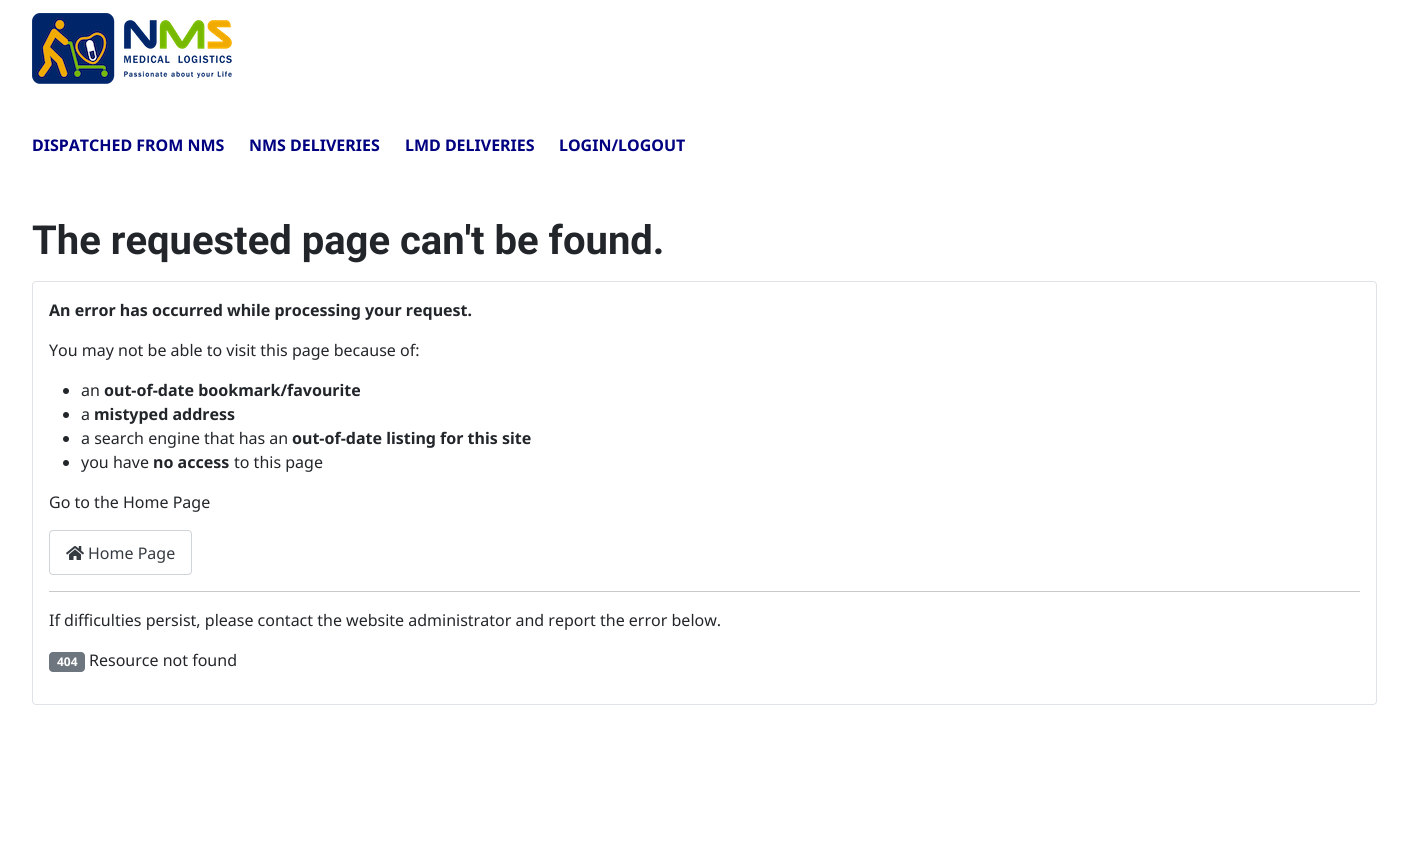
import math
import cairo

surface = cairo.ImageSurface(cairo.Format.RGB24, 1409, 858)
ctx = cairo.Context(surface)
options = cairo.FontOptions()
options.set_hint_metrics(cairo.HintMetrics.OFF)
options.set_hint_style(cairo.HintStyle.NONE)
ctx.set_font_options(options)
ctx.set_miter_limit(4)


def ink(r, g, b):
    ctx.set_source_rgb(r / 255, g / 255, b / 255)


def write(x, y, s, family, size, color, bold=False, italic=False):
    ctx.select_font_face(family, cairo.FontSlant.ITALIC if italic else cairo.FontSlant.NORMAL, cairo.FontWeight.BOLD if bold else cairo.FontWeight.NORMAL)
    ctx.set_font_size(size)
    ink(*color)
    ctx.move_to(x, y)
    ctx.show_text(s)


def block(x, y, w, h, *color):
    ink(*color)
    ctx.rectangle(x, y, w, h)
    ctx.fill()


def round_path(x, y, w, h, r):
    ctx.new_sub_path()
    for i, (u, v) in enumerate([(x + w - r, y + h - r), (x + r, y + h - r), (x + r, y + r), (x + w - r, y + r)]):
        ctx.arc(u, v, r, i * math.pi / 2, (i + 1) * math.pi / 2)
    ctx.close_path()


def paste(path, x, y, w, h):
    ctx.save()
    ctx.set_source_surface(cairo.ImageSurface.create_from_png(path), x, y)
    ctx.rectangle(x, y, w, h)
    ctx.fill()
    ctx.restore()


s1 = dict(family="Noto Sans", size=16, color=(0, 0, 128), bold=True)
s2 = dict(family="Roboto", size=40, color=(34, 38, 42), bold=True)
s3 = dict(family="Noto Sans", size=16, color=(34, 38, 42), bold=True)
s4 = dict(family="Noto Sans", size=16, color=(34, 38, 42))
s5 = dict(family="Noto Sans", size=16, color=(53, 59, 65))
s6 = dict(family="Noto Sans", size=12, color=(255, 255, 255), bold=True)

ink(255, 255, 255)
ctx.paint()
paste("pic1.png", 32, 13, 200, 71)
write(32, 151, "DISPATCHED FROM NMS", **s1)
write(249, 151, "NMS DELIVERIES", **s1)
write(405, 151, "LMD DELIVERIES", **s1)
write(559, 151, "LOGIN/LOGOUT", **s1)
write(32, 254, "The requested page can't be found.", **s2)
round_path(32.5, 281.5, 1344, 423, 3.5)
ink(223, 227, 231)
ctx.set_line_width(1)
ctx.stroke()
write(49, 316, "An error has occurred while processing your request.", **s3)
write(49, 356, "You may not be able to visit this page because of:", **s4)
ctx.new_path()
ctx.arc(66, 391, 3, 0, 2 * math.pi)
ctx.fill()
write(81, 396, "an", **s4)
write(104, 396, "out-of-date bookmark/favourite", **s3)
ctx.new_path()
ctx.arc(66, 415, 3, 0, 2 * math.pi)
ctx.fill()
write(81, 420, "a", **s4)
write(94, 420, "mistyped address", **s3)
ctx.new_path()
ctx.arc(66, 439, 3, 0, 2 * math.pi)
ctx.fill()
write(81, 444, "a search engine that has an", **s4)
write(292, 444, "out-of-date listing for this site", **s3)
ctx.new_path()
ctx.arc(66, 463, 3, 0, 2 * math.pi)
ctx.fill()
write(81, 468, "you have", **s4)
write(153, 468, "no access", **s3)
write(234, 468, "to this page", **s4)
write(49, 508, "Go to the Home Page", **s4)
round_path(49.5, 530.5, 142, 44, 3.5)
ink(206, 212, 218)
ctx.stroke()
paste("pic2.png", 66, 546, 18, 14)
write(88, 559, "Home Page", **s5)
block(49, 591, 1311, 1, 200, 201, 202)
write(49, 626, "If difficulties persist, please contact the website administrator and report the error below.", **s4)
ink(109, 117, 126)
round_path(49, 652, 36, 20, 4)
ctx.fill()
write(57, 666, "404", **s6)
write(89, 666, "Resource not found", **s4)
surface.write_to_png("screenshot.png")
